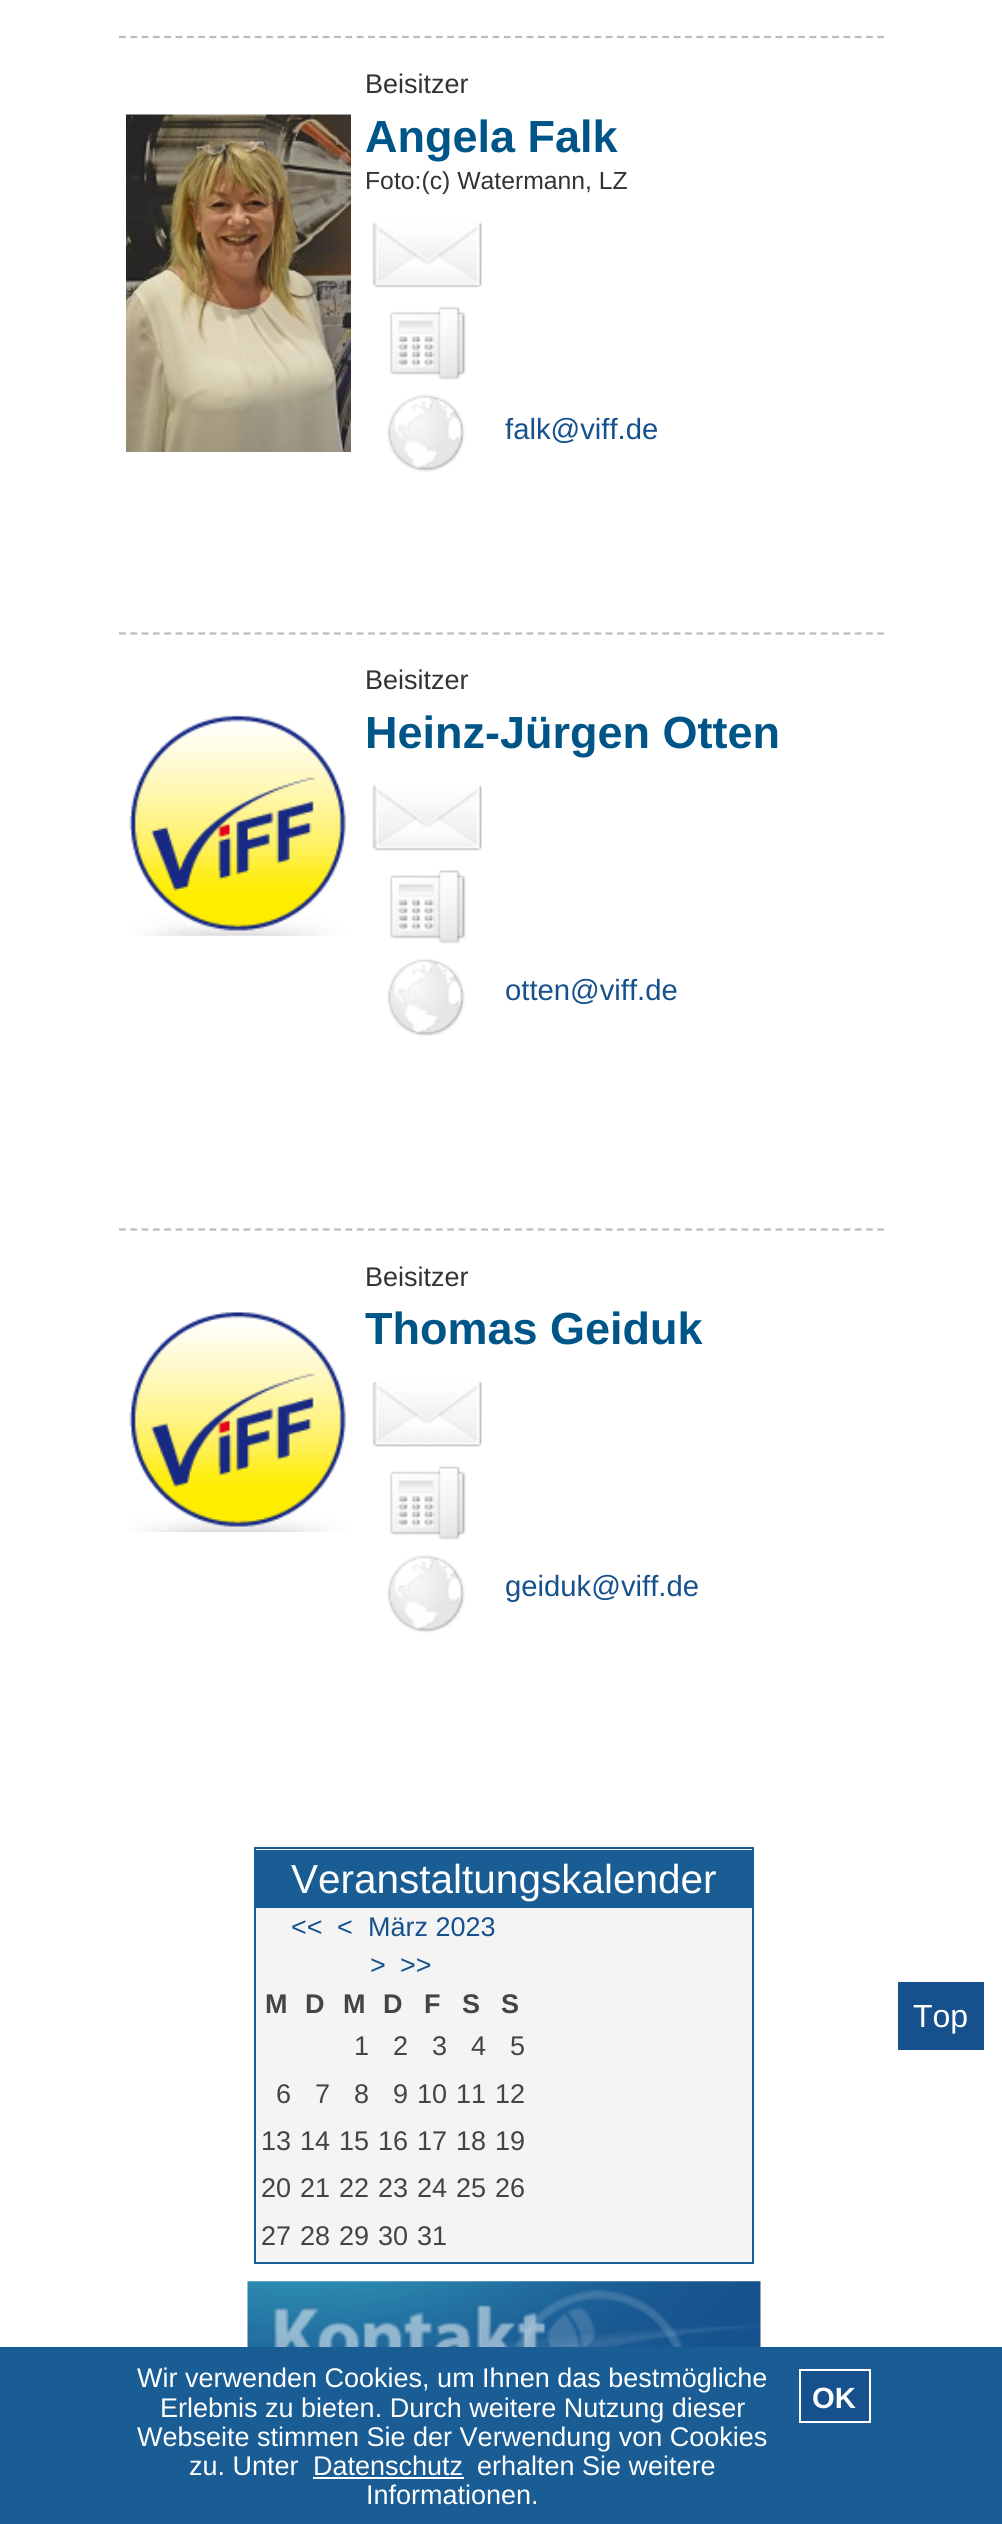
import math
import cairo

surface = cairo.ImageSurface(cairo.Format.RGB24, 1002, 2524)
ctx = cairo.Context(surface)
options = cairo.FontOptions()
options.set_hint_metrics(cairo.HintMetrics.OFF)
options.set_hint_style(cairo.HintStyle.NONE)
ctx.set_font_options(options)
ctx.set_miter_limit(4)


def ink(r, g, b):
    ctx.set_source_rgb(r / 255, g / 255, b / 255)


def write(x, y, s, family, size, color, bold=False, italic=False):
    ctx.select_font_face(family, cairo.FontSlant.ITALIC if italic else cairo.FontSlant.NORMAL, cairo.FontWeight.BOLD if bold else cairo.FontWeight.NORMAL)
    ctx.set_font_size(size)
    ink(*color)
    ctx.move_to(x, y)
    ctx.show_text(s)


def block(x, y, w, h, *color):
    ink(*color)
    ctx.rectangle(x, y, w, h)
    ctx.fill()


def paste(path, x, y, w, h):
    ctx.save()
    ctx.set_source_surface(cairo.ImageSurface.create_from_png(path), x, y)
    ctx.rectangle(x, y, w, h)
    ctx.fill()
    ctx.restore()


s1 = dict(family="Liberation Sans", size=27, color=(51, 51, 51))
s2 = dict(family="Liberation Sans", size=45, color=(0, 85, 136), bold=True)
s3 = dict(family="Liberation Sans", size=24.75, color=(51, 51, 51))
s4 = dict(family="Liberation Sans", size=29.25, color=(22, 81, 141))
s5 = dict(family="Liberation Sans", size=40.5, color=(255, 255, 255))
s6 = dict(family="Liberation Sans", size=27, color=(22, 81, 141))
s7 = dict(family="Liberation Sans", size=27, color=(68, 68, 68), bold=True)
s8 = dict(family="Liberation Sans", size=27, color=(68, 68, 68))
s9 = dict(family="Liberation Sans", size=32, color=(255, 255, 255))
s10 = dict(family="Liberation Sans", size=27, color=(255, 255, 255))
s11 = dict(family="Liberation Sans", size=29.25, color=(255, 255, 255), bold=True)

ink(255, 255, 255)
ctx.paint()
ctx.new_path()
ctx.move_to(119, 37)
ctx.line_to(884, 37)
ink(187, 187, 187)
ctx.set_line_width(2.2)
ctx.set_dash([6.75, 4.57])
ctx.stroke()
paste("pic1.png", 126, 114, 225, 338)
write(365, 93, "Beisitzer", **s1)
write(365, 152, "Angela Falk", **s2)
write(365, 189, "Foto:(c) Watermann, LZ", **s3)
paste("pic2.png", 372, 222, 110, 250)
write(505, 439, "falk@viff.de", **s4)
ctx.new_path()
ctx.move_to(119, 633.5)
ctx.line_to(884, 633.5)
ink(187, 187, 187)
ctx.stroke()
paste("pic3.png", 129, 715, 217, 221)
write(365, 689, "Beisitzer", **s1)
write(365, 748, "Heinz-Jürgen Otten", **s2)
paste("pic4.png", 372, 784, 110, 252)
write(505, 1000, "otten@viff.de", **s4)
ctx.new_path()
ctx.move_to(119, 1229.5)
ctx.line_to(884, 1229.5)
ink(187, 187, 187)
ctx.stroke()
paste("pic5.png", 129, 1312, 217, 220)
write(365, 1286, "Beisitzer", **s1)
write(365, 1344, "Thomas Geiduk", **s2)
paste("pic6.png", 372, 1381, 110, 252)
write(505, 1596, "geiduk@viff.de", **s4)
ink(244, 244, 244)
ctx.rectangle(255, 1848, 498, 415)
ctx.fill_preserve()
ink(26, 93, 148)
ctx.set_line_width(2)
ctx.set_dash([])
ctx.stroke()
block(256, 1850, 496, 58, 26, 93, 148)
write(291, 1893, "Veranstaltungskalender", **s5)
write(291, 1936, "<<", **s6)
write(337, 1936, "<", **s6)
write(368, 1936, "März 2023", **s6)
write(370, 1974, ">", **s6)
write(400, 1974, ">>", **s6)
write(265, 2013, "M", **s7)
write(305, 2013, "D", **s7)
write(343, 2013, "M", **s7)
write(383, 2013, "D", **s7)
write(424, 2013, "F", **s7)
write(462, 2013, "S", **s7)
write(501, 2013, "S", **s7)
write(354, 2055, "1", **s8)
write(393, 2055, "2", **s8)
write(432, 2055, "3", **s8)
write(471, 2055, "4", **s8)
write(510, 2055, "5", **s8)
write(276, 2103, "6", **s8)
write(315, 2103, "7", **s8)
write(354, 2103, "8", **s8)
write(393, 2103, "9", **s8)
write(417, 2103, "10", **s8)
write(456, 2103, "11", **s8)
write(495, 2103, "12", **s8)
write(261, 2150, "13", **s8)
write(300, 2150, "14", **s8)
write(339, 2150, "15", **s8)
write(378, 2150, "16", **s8)
write(417, 2150, "17", **s8)
write(456, 2150, "18", **s8)
write(495, 2150, "19", **s8)
write(261, 2197, "20", **s8)
write(300, 2197, "21", **s8)
write(339, 2197, "22", **s8)
write(378, 2197, "23", **s8)
write(417, 2197, "24", **s8)
write(456, 2197, "25", **s8)
write(495, 2197, "26", **s8)
write(261, 2245, "27", **s8)
write(300, 2245, "28", **s8)
write(339, 2245, "29", **s8)
write(378, 2245, "30", **s8)
write(417, 2245, "31", **s8)
paste("pic7.png", 247, 2281, 514, 66)
block(898, 1982, 86, 68, 22, 81, 141)
write(913, 2027, "Top", **s9)
block(0, 2347, 1002, 177, 26, 93, 148)
write(137, 2387, "Wir verwenden Cookies, um Ihnen das bestmögliche", **s10)
write(160, 2417, "Erlebnis zu bieten. Durch weitere Nutzung dieser", **s10)
write(137, 2446, "Webseite stimmen Sie der Verwendung von Cookies", **s10)
write(189, 2475, "zu. Unter", **s10)
write(313, 2475, "Datenschutz", **s10)
block(313, 2477, 151, 2, 255, 255, 255)
write(477, 2475, "erhalten Sie weitere", **s10)
write(366, 2504, "Informationen.", **s10)
ink(22, 81, 141)
ctx.rectangle(800, 2370, 70, 52)
ctx.fill_preserve()
ink(255, 255, 255)
ctx.stroke()
write(812, 2408, "OK", **s11)
surface.write_to_png("screenshot.png")
